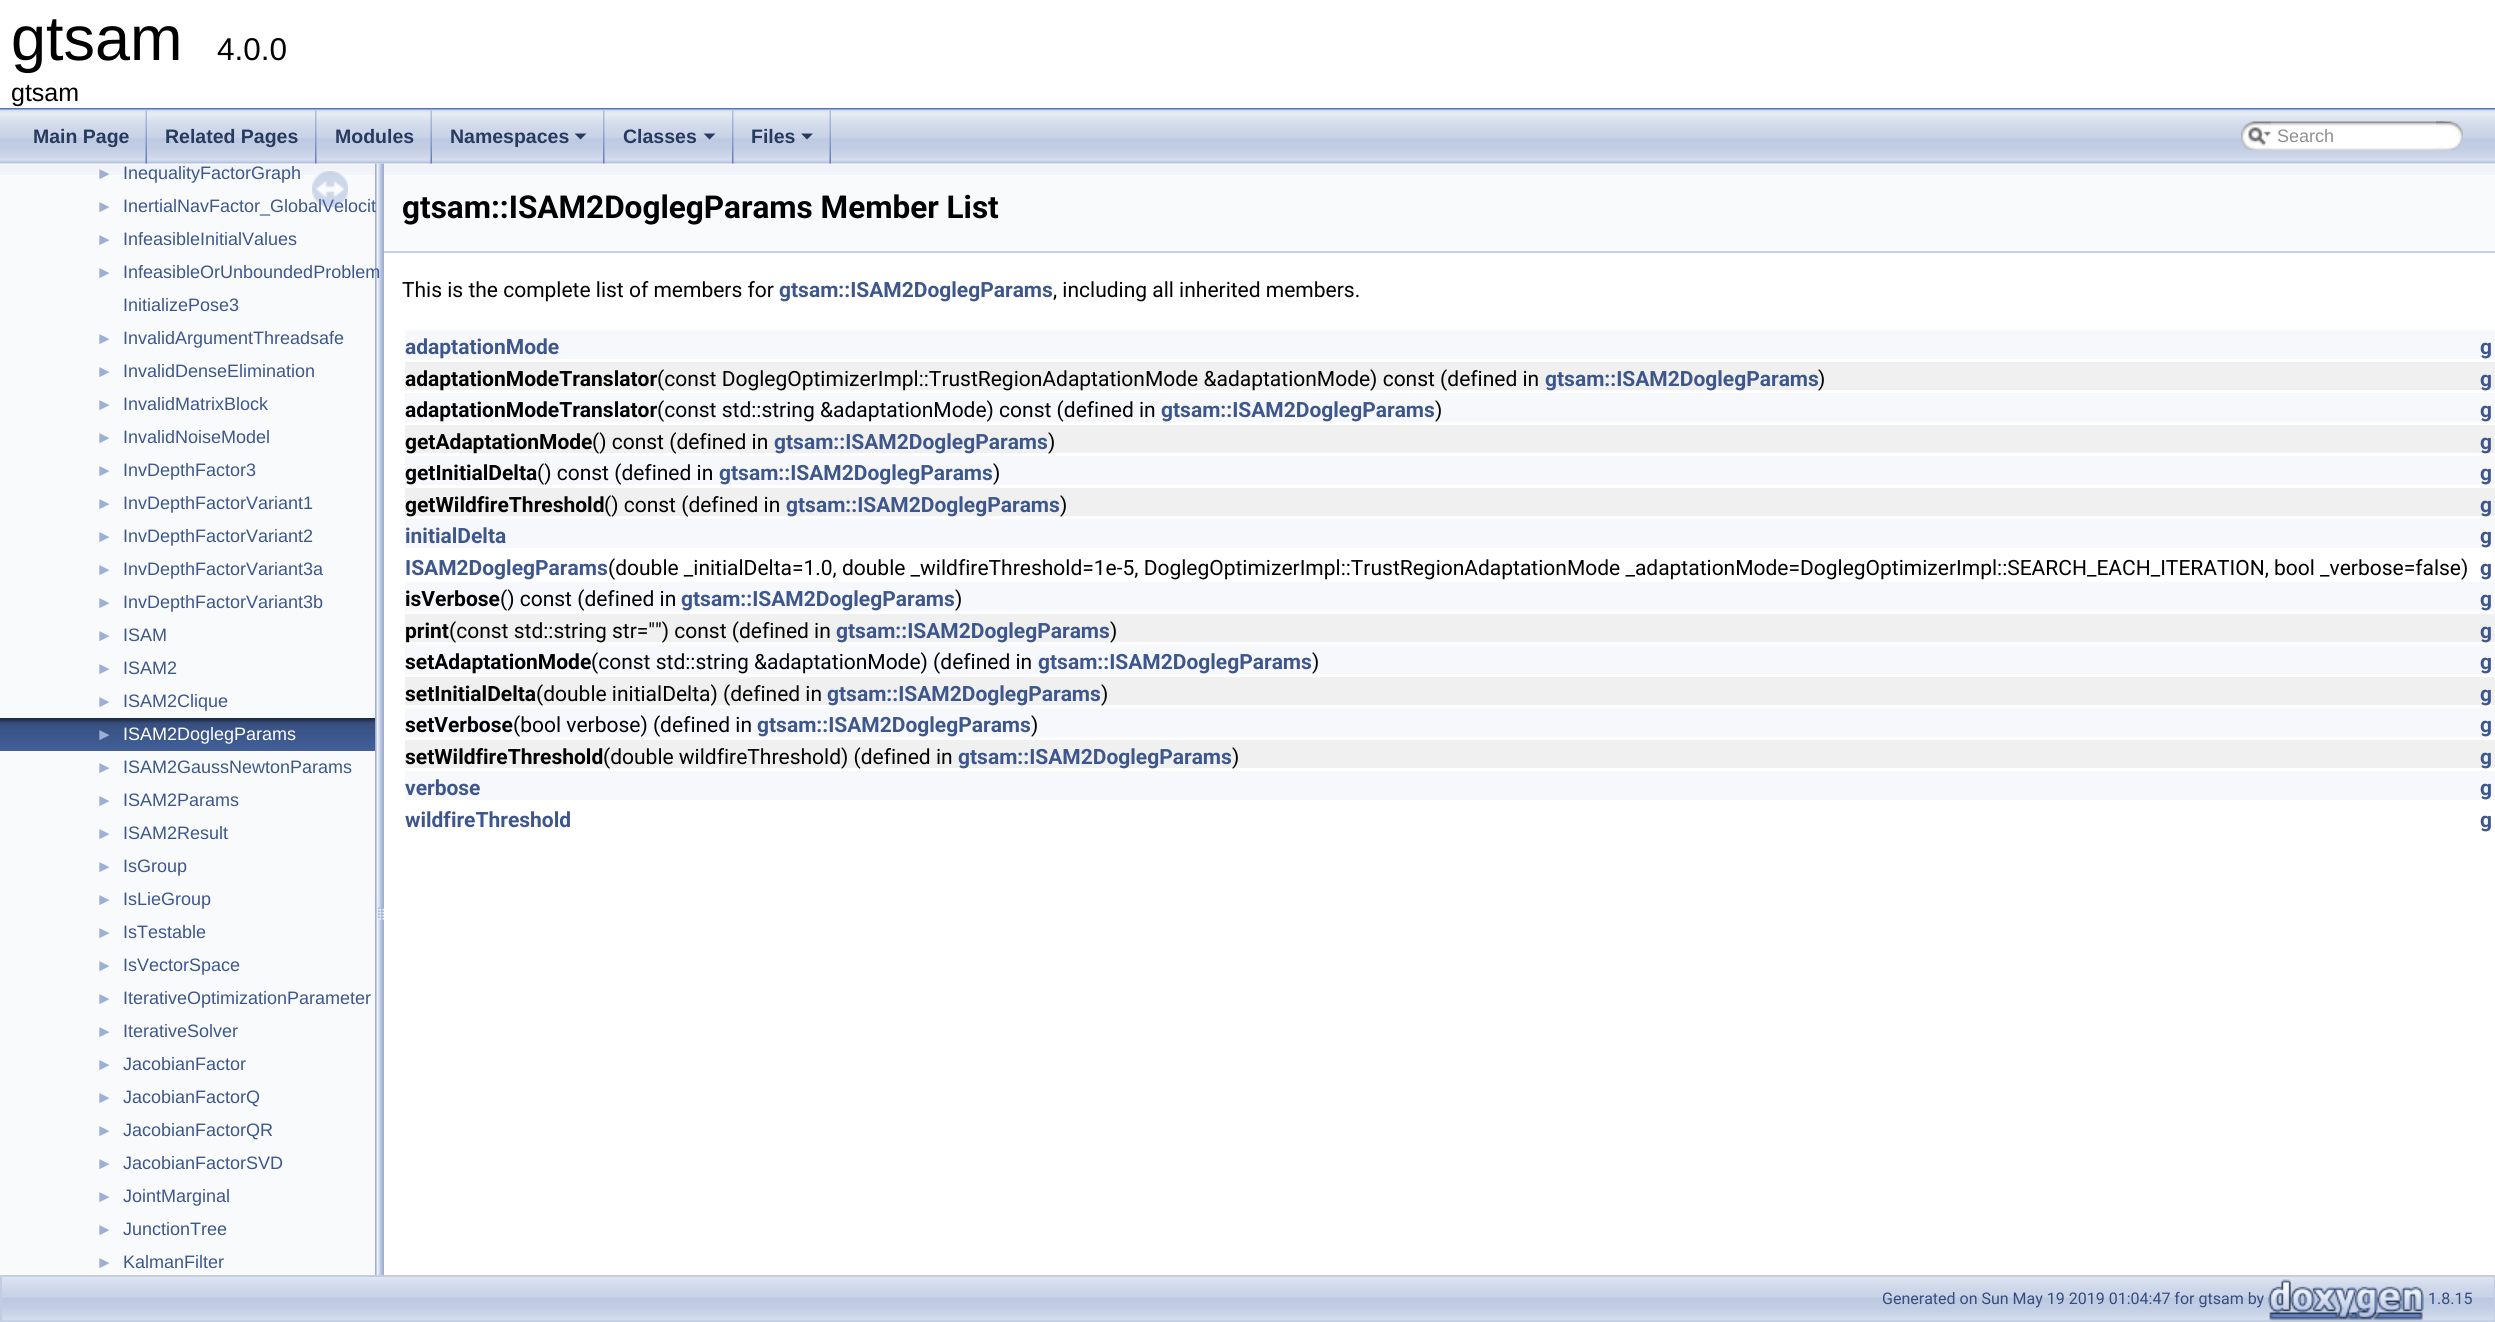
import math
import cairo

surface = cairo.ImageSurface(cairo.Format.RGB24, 2495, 1322)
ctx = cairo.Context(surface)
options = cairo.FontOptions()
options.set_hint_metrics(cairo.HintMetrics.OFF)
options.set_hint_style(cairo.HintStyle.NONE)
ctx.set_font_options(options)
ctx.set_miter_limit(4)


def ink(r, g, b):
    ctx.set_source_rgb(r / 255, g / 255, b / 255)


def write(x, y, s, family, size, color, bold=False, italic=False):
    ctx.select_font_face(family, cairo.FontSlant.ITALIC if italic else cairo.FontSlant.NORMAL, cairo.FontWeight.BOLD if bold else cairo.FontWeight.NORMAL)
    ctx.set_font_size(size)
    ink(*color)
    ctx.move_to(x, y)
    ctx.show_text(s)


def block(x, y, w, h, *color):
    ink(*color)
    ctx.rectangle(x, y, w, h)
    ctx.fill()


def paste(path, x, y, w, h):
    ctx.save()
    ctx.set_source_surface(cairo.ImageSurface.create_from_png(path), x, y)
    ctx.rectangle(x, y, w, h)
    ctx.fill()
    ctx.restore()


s1 = dict(family="Liberation Sans", size=63, color=(0, 0, 0))
s2 = dict(family="Liberation Sans", size=31.5, color=(0, 0, 0))
s3 = dict(family="Liberation Sans", size=25, color=(0, 0, 0))
s4 = dict(family="Liberation Sans", size=19.5, color=(40, 58, 93), bold=True)
s5 = dict(family="Liberation Sans", size=18, color=(144, 144, 144))
s6 = dict(family="Liberation Sans", size=17, color=(156, 175, 212))
s7 = dict(family="Liberation Sans", size=18, color=(61, 87, 140))
s8 = dict(family="Liberation Sans", size=18, color=(255, 255, 255))
s9 = dict(family="Roboto", size=31.5, color=(0, 0, 0), bold=True)
s10 = dict(family="Roboto", size=21, color=(0, 0, 0))
s11 = dict(family="Roboto", size=21, color=(61, 87, 140), bold=True)
s12 = dict(family="Roboto", size=21, color=(0, 0, 0), bold=True)
s13 = dict(family="Roboto", size=16, color=(54, 77, 124))

ink(255, 255, 255)
ctx.paint()
block(0, 108, 2495, 2, 83, 115, 180)
write(11, 60, "gtsam", **s1)
write(217, 60, "4.0.0", **s2)
write(11, 101, "gtsam", **s3)
paste("pic13.png", 375, 163, 9, 1112)
paste("pic1.png", 0, 109, 2495, 55)
paste("pic2.png", 145, 109, 2, 55)
write(33, 143, "Main Page", **s4)
paste("pic3.png", 315, 109, 2, 55)
write(165, 143, "Related Pages", **s4)
paste("pic4.png", 430, 109, 2, 55)
write(335, 143, "Modules", **s4)
paste("pic3.png", 603, 109, 2, 55)
write(450, 143, "Namespaces", **s4)
ctx.new_path()
ctx.move_to(574.5, 133.5)
ctx.line_to(586.5, 133.5)
ctx.line_to(580.5, 139.5)
ctx.close_path()
ctx.fill()
paste("pic5.png", 732, 109, 2, 55)
write(623, 143, "Classes", **s4)
ctx.new_path()
ctx.move_to(703.5, 133.5)
ctx.line_to(715.5, 133.5)
ctx.line_to(709.5, 139.5)
ctx.close_path()
ctx.fill()
paste("pic2.png", 829, 109, 2, 55)
write(751, 143, "Files", **s4)
ctx.new_path()
ctx.move_to(801, 133.5)
ctx.line_to(813, 133.5)
ctx.line_to(807, 139.5)
ctx.close_path()
ctx.fill()
paste("pic6.png", 2241, 121, 30, 29)
paste("pic7.png", 2248, 127, 23, 19)
paste("pic8.png", 2271, 121, 173, 29)
write(2277, 142, "Search", **s5)
paste("pic9.png", 2436, 121, 27, 29)
block(0, 164, 375, 1111, 249, 250, 252)
paste("pic10.png", 0, 165, 375, 10)
write(96, 179, "►", **s6)
write(123, 179, "InequalityFactorGraph", **s7)
write(96, 212, "►", **s6)
write(123, 212, "InertialNavFactor_GlobalVelocit", **s7)
write(96, 245, "►", **s6)
write(123, 245, "InfeasibleInitialValues", **s7)
write(96, 278, "►", **s6)
write(123, 278, "InfeasibleOrUnboundedProblem", **s7)
write(123, 311, "InitializePose3", **s7)
write(96, 344, "►", **s6)
write(123, 344, "InvalidArgumentThreadsafe", **s7)
write(96, 377, "►", **s6)
write(123, 377, "InvalidDenseElimination", **s7)
write(96, 410, "►", **s6)
write(123, 410, "InvalidMatrixBlock", **s7)
write(96, 443, "►", **s6)
write(123, 443, "InvalidNoiseModel", **s7)
write(96, 476, "►", **s6)
write(123, 476, "InvDepthFactor3", **s7)
write(96, 509, "►", **s6)
write(123, 509, "InvDepthFactorVariant1", **s7)
write(96, 542, "►", **s6)
write(123, 542, "InvDepthFactorVariant2", **s7)
write(96, 575, "►", **s6)
write(123, 575, "InvDepthFactorVariant3a", **s7)
write(96, 608, "►", **s6)
write(123, 608, "InvDepthFactorVariant3b", **s7)
write(96, 641, "►", **s6)
write(123, 641, "ISAM", **s7)
write(96, 674, "►", **s6)
write(123, 674, "ISAM2", **s7)
write(96, 707, "►", **s6)
write(123, 707, "ISAM2Clique", **s7)
paste("pic11.png", 0, 718, 375, 33)
write(96, 740, "►", **s6)
write(123, 740, "ISAM2DoglegParams", **s8)
write(96, 773, "►", **s6)
write(123, 773, "ISAM2GaussNewtonParams", **s7)
write(96, 806, "►", **s6)
write(123, 806, "ISAM2Params", **s7)
write(96, 839, "►", **s6)
write(123, 839, "ISAM2Result", **s7)
write(96, 872, "►", **s6)
write(123, 872, "IsGroup", **s7)
write(96, 905, "►", **s6)
write(123, 905, "IsLieGroup", **s7)
write(96, 938, "►", **s6)
write(123, 938, "IsTestable", **s7)
write(96, 971, "►", **s6)
write(123, 971, "IsVectorSpace", **s7)
write(96, 1004, "►", **s6)
write(123, 1004, "IterativeOptimizationParameter", **s7)
write(96, 1037, "►", **s6)
write(123, 1037, "IterativeSolver", **s7)
write(96, 1070, "►", **s6)
write(123, 1070, "JacobianFactor", **s7)
write(96, 1103, "►", **s6)
write(123, 1103, "JacobianFactorQ", **s7)
write(96, 1136, "►", **s6)
write(123, 1136, "JacobianFactorQR", **s7)
write(96, 1169, "►", **s6)
write(123, 1169, "JacobianFactorSVD", **s7)
write(96, 1202, "►", **s6)
write(123, 1202, "JointMarginal", **s7)
write(96, 1235, "►", **s6)
write(123, 1235, "JunctionTree", **s7)
write(96, 1268, "►", **s6)
write(123, 1268, "KalmanFilter", **s7)
paste("pic12.png", 312, 171, 36, 36)
block(384, 164, 2111, 87, 249, 250, 252)
paste("pic14.png", 384, 165, 2111, 10)
block(384, 251, 2111, 2, 196, 207, 229)
write(402, 218, "gtsam::ISAM2DoglegParams Member List", **s9)
write(402, 297, "This is the complete list of members for", **s10)
write(779, 297, "gtsam::ISAM2DoglegParams", **s11)
write(1053, 297, ", including all inherited members.", **s10)
block(405, 330, 2090, 29, 247, 248, 251)
write(405, 354, "adaptationMode", **s11)
write(2480, 354, "g", **s11)
block(405, 362, 2090, 28, 240, 240, 240)
write(405, 386, "adaptationModeTranslator", **s12)
write(657, 386, "(const DoglegOptimizerImpl::TrustRegionAdaptationMode &adaptationMode) const (defined in", **s10)
write(1545, 386, "gtsam::ISAM2DoglegParams", **s11)
write(1818, 386, ")", **s10)
write(2480, 386, "g", **s11)
block(405, 393, 2090, 29, 247, 248, 251)
write(405, 417, "adaptationModeTranslator", **s12)
write(657, 417, "(const std::string &adaptationMode) const (defined in", **s10)
write(1161, 417, "gtsam::ISAM2DoglegParams", **s11)
write(1435, 417, ")", **s10)
write(2480, 417, "g", **s11)
block(405, 425, 2090, 28, 240, 240, 240)
write(405, 449, "getAdaptationMode", **s12)
write(592, 449, "() const (defined in", **s10)
write(774, 449, "gtsam::ISAM2DoglegParams", **s11)
write(1048, 449, ")", **s10)
write(2480, 449, "g", **s11)
block(405, 456, 2090, 29, 247, 248, 251)
write(405, 480, "getInitialDelta", **s12)
write(537, 480, "() const (defined in", **s10)
write(719, 480, "gtsam::ISAM2DoglegParams", **s11)
write(993, 480, ")", **s10)
write(2480, 480, "g", **s11)
block(405, 488, 2090, 28, 240, 240, 240)
write(405, 512, "getWildfireThreshold", **s12)
write(604, 512, "() const (defined in", **s10)
write(786, 512, "gtsam::ISAM2DoglegParams", **s11)
write(1060, 512, ")", **s10)
write(2480, 512, "g", **s11)
block(405, 519, 2090, 29, 247, 248, 251)
write(405, 543, "initialDelta", **s11)
write(2480, 543, "g", **s11)
write(405, 575, "ISAM2DoglegParams", **s11)
write(608, 575, "(double _initialDelta=1.0, double _wildfireThreshold=1e-5, DoglegOptimizerImpl::TrustRegionAdaptationMode _adaptationMode=DoglegOptimizerImpl::SEARCH_EACH_ITERATION, bool _verbose=false)", **s10)
write(2480, 575, "g", **s11)
block(405, 582, 2090, 29, 247, 248, 251)
write(405, 606, "isVerbose", **s12)
write(500, 606, "() const (defined in", **s10)
write(681, 606, "gtsam::ISAM2DoglegParams", **s11)
write(955, 606, ")", **s10)
write(2480, 606, "g", **s11)
block(405, 614, 2090, 28, 240, 240, 240)
write(405, 638, "print", **s12)
write(449, 638, "(const std::string str=\"\") const (defined in", **s10)
write(836, 638, "gtsam::ISAM2DoglegParams", **s11)
write(1110, 638, ")", **s10)
write(2480, 638, "g", **s11)
block(405, 645, 2090, 29, 247, 248, 251)
write(405, 669, "setAdaptationMode", **s12)
write(591, 669, "(const std::string &adaptationMode) (defined in", **s10)
write(1038, 669, "gtsam::ISAM2DoglegParams", **s11)
write(1312, 669, ")", **s10)
write(2480, 669, "g", **s11)
block(405, 677, 2090, 28, 240, 240, 240)
write(405, 701, "setInitialDelta", **s12)
write(536, 701, "(double initialDelta) (defined in", **s10)
write(827, 701, "gtsam::ISAM2DoglegParams", **s11)
write(1101, 701, ")", **s10)
write(2480, 701, "g", **s11)
block(405, 708, 2090, 29, 247, 248, 251)
write(405, 732, "setVerbose", **s12)
write(513, 732, "(bool verbose) (defined in", **s10)
write(757, 732, "gtsam::ISAM2DoglegParams", **s11)
write(1031, 732, ")", **s10)
write(2480, 732, "g", **s11)
block(405, 740, 2090, 28, 240, 240, 240)
write(405, 764, "setWildfireThreshold", **s12)
write(603, 764, "(double wildfireThreshold) (defined in", **s10)
write(958, 764, "gtsam::ISAM2DoglegParams", **s11)
write(1232, 764, ")", **s10)
write(2480, 764, "g", **s11)
block(405, 771, 2090, 29, 247, 248, 251)
write(405, 795, "verbose", **s11)
write(2480, 795, "g", **s11)
write(405, 827, "wildfireThreshold", **s11)
write(2480, 827, "g", **s11)
paste("pic15.png", 2, 1277, 2492, 44)
ctx.rectangle(1, 1276, 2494, 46)
ink(194, 205, 228)
ctx.stroke()
write(1882, 1304, "Generated on Sun May 19 2019 01:04:47 for gtsam by", **s13)
paste("pic16.png", 2268, 1279, 156, 42)
write(2428, 1304, "1.8.15", **s13)
surface.write_to_png("screenshot.png")
